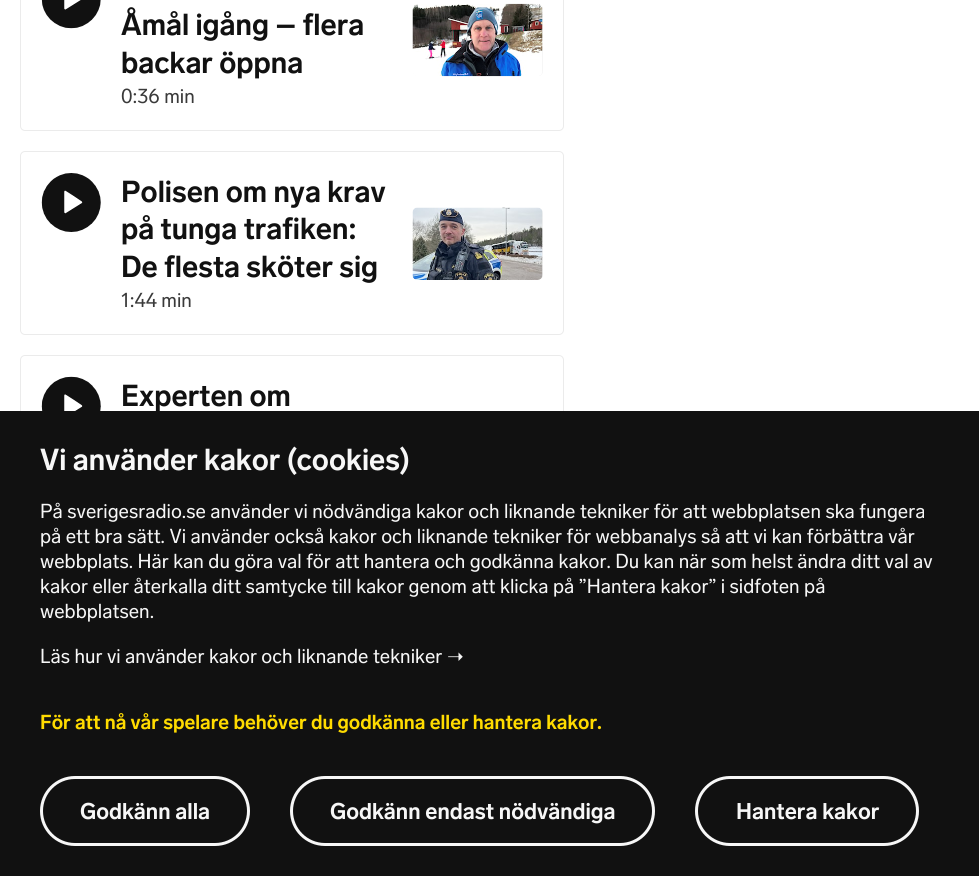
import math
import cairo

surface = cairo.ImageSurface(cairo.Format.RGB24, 979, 876)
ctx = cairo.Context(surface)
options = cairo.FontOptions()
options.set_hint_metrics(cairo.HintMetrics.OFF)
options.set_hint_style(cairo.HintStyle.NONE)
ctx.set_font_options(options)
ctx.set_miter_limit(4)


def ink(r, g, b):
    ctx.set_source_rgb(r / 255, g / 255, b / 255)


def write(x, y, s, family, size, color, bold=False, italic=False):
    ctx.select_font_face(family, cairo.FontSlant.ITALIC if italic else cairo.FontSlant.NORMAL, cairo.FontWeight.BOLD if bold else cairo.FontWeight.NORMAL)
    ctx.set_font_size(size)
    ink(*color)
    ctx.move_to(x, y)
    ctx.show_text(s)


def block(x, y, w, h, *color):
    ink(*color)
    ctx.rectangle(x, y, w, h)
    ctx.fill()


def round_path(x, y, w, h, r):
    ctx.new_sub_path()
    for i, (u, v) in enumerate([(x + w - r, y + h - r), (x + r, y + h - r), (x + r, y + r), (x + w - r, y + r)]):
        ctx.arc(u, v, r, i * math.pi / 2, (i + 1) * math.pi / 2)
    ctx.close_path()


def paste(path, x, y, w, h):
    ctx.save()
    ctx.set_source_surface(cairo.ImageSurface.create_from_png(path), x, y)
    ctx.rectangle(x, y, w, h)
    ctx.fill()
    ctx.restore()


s1 = dict(family="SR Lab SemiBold", size=30, color=(17, 17, 17))
s2 = dict(family="SR Lab", size=20, color=(58, 58, 58))
s3 = dict(family="SR Lab SemiBold", size=30, color=(247, 247, 247))
s4 = dict(family="SR Lab", size=20, color=(247, 247, 247))
s5 = dict(family="DejaVu Sans", size=20, color=(247, 247, 247))
s6 = dict(family="SR Lab SemiBold", size=20, color=(255, 219, 0))
s7 = dict(family="SR Lab SemiBold", size=22.5, color=(247, 247, 247))

ink(255, 255, 255)
ctx.paint()
round_path(20.5, -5.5, 543, 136, 4.5)
ink(235, 235, 235)
ctx.set_line_width(1)
ctx.stroke()
paste("pic1.png", 41, 0, 60, 29)
write(121, 35, "Åmål igång – flera", **s1)
write(121, 73, "backar öppna", **s1)
write(121, 103, "0:36 min", **s2)
ink(243, 243, 243)
round_path(413, 4, 130, 72, 5)
ctx.fill()
paste("pic2.png", 412, 3, 131, 74)
round_path(20.5, 151.5, 543, 183, 4.5)
ink(235, 235, 235)
ctx.stroke()
paste("pic3.png", 41, 173, 60, 59)
write(121, 202, "Polisen om nya krav", **s1)
write(121, 239, "på tunga trafiken:", **s1)
write(121, 277, "De flesta sköter sig", **s1)
write(121, 307, "1:44 min", **s2)
ink(243, 243, 243)
round_path(413, 208, 130, 72, 5)
ctx.fill()
paste("pic4.png", 412, 207, 131, 73)
round_path(20.5, 355.5, 543, 222, 4.5)
ink(235, 235, 235)
ctx.stroke()
paste("pic5.png", 41, 376, 60, 35)
write(121, 406, "Experten om", **s1)
block(0, 411, 979, 465, 17, 17, 17)
write(40, 470, "Vi använder kakor (cookies)", **s3)
write(40, 518, "På sverigesradio.se använder vi nödvändiga kakor och liknande tekniker för att webbplatsen ska fungera", **s4)
write(40, 543, "på ett bra sätt. Vi använder också kakor och liknande tekniker för webbanalys så att vi kan förbättra vår", **s4)
write(40, 568, "webbplats. Här kan du göra val för att hantera och godkänna kakor. Du kan när som helst ändra ditt val av", **s4)
write(40, 593, "kakor eller återkalla ditt samtycke till kakor genom att klicka på ”Hantera kakor” i sidfoten på", **s4)
write(40, 618, "webbplatsen.", **s4)
write(40, 663, "Läs hur vi använder kakor och liknande tekniker", **s4)
write(447, 663, "➝", **s5)
write(40, 729, "För att nå vår spelare behöver du godkänna eller hantera kakor.", **s6)
round_path(41.5, 777.5, 207, 67, 33.5)
ink(247, 247, 247)
ctx.set_line_width(3)
ctx.stroke()
write(80, 819, "Godkänn alla", **s7)
round_path(291.5, 777.5, 362, 67, 33.5)
ctx.stroke()
write(330, 819, "Godkänn endast nödvändiga", **s7)
round_path(696.5, 777.5, 221, 67, 33.5)
ctx.stroke()
write(736, 819, "Hantera kakor", **s7)
surface.write_to_png("screenshot.png")
